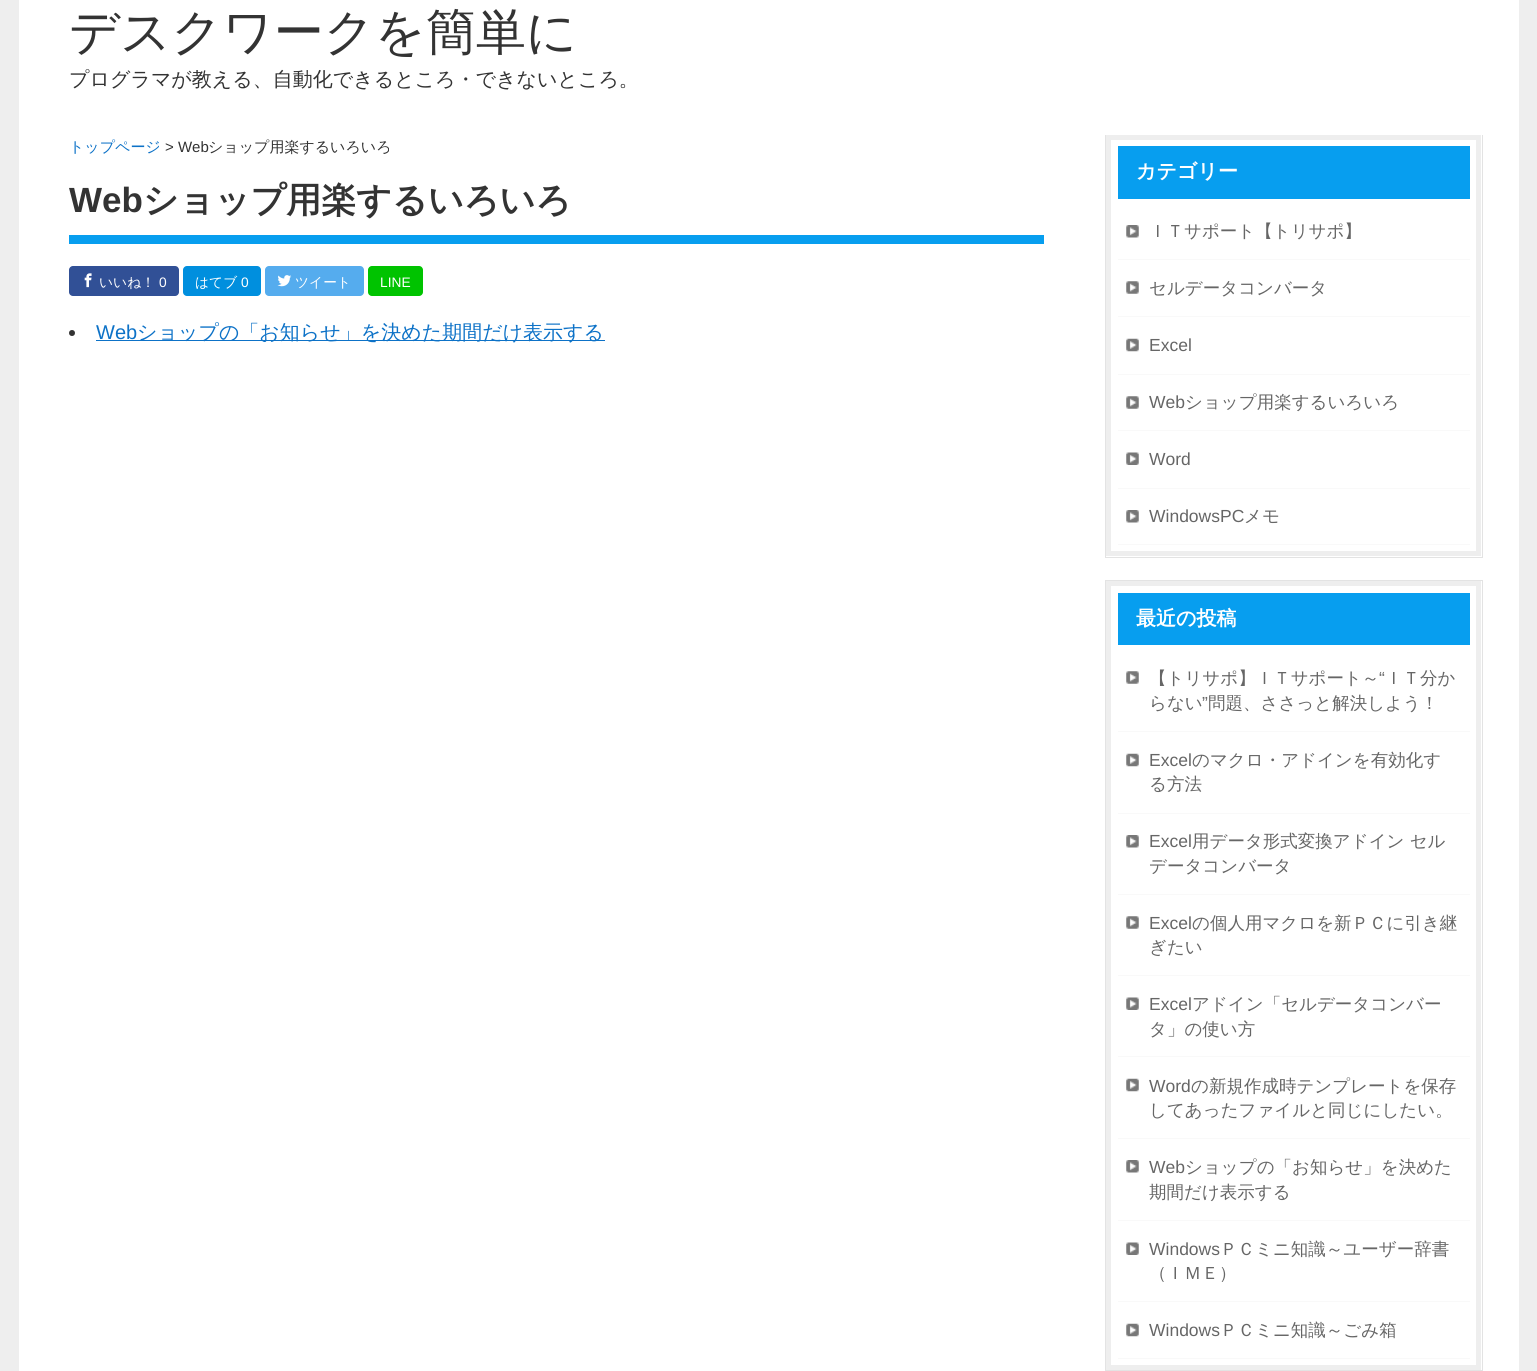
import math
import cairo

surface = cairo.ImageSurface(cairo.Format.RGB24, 1537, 1371)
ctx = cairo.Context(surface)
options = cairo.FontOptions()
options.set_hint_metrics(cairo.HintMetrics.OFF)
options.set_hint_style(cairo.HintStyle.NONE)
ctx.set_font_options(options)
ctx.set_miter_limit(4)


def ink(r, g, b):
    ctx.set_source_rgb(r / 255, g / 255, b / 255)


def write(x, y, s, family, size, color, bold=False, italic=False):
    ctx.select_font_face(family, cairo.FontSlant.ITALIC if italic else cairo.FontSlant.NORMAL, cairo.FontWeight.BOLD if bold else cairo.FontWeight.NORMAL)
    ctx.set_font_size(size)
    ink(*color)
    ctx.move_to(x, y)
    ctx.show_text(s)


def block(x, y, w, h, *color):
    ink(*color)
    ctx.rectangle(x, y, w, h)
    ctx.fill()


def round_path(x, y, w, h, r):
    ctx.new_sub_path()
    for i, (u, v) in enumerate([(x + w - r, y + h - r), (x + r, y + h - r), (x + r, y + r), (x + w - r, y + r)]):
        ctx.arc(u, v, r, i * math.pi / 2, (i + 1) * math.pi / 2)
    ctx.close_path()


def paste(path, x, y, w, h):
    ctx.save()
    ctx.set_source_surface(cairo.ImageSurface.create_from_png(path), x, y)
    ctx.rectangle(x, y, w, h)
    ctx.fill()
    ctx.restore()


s1 = dict(family="WenQuanYi Zen Hei Medium", size=50, color=(51, 51, 51))
s2 = dict(family="WenQuanYi Zen Hei Medium", size=20, color=(51, 51, 51))
s3 = dict(family="WenQuanYi Zen Hei Medium", size=15, color=(13, 114, 199))
s4 = dict(family="Liberation Sans", size=15, color=(51, 51, 51))
s5 = dict(family="WenQuanYi Zen Hei Medium", size=15, color=(51, 51, 51))
s6 = dict(family="Liberation Sans", size=35, color=(51, 51, 51), bold=True)
s7 = dict(family="WenQuanYi Zen Hei", size=35, color=(51, 51, 51), bold=True)
s8 = dict(family="WenQuanYi Zen Hei Medium", size=13.75, color=(255, 255, 255))
s9 = dict(family="Liberation Sans", size=13.75, color=(255, 255, 255))
s10 = dict(family="Liberation Sans", size=20, color=(13, 114, 199))
s11 = dict(family="WenQuanYi Zen Hei Medium", size=20, color=(13, 114, 199))
s12 = dict(family="WenQuanYi Zen Hei", size=20, color=(255, 255, 255), bold=True)
s13 = dict(family="WenQuanYi Zen Hei Medium", size=17.5, color=(102, 102, 102))
s14 = dict(family="Liberation Sans", size=17.5, color=(102, 102, 102))

ink(238, 238, 238)
ctx.paint()
block(19, 0, 1500, 1371, 255, 255, 255)
write(69, 49, "デスクワークを簡単に", **s1)
write(69, 86, "プログラマが教える、自動化できるところ・できないところ。", **s2)
write(69, 152, "トップページ", **s3)
write(165, 152, "> Web", **s4)
write(208, 152, "ショップ用楽するいろいろ", **s5)
block(69, 235, 975, 9, 7, 158, 239)
write(69, 212, "Web", **s6)
write(143, 212, "ショップ用楽するいろいろ", **s7)
ink(49, 80, 150)
round_path(69, 266, 110, 30, 4)
ctx.fill()
paste("pic1.png", 84, 273, 8, 15)
write(99, 287, "いいね！", **s8)
write(159, 287, "0", **s9)
ink(0, 143, 222)
round_path(183, 266, 78, 30, 4)
ctx.fill()
write(195, 287, "はてブ", **s8)
write(241, 287, "0", **s9)
ink(85, 172, 238)
round_path(265, 266, 99, 30, 4)
ctx.fill()
paste("pic2.png", 277, 275, 15, 12)
write(295, 287, "ツイート", **s8)
ink(0, 195, 0)
round_path(368, 266, 55, 30, 4)
ctx.fill()
write(380, 287, "LINE", **s9)
ink(51, 51, 51)
ctx.new_path()
ctx.arc(72, 333, 3, 0, 2 * math.pi)
ctx.fill()
write(96, 339, "Web", **s10)
block(96, 340, 509, 1, 13, 114, 199)
write(137, 339, "ショップの「お知らせ」を決めた期間だけ表示する", **s11)
ctx.rectangle(1108.5, 137.5, 370, 416)
ink(238, 238, 238)
ctx.set_line_width(5)
ctx.stroke()
block(1118, 146, 352, 53, 7, 158, 239)
block(1118, 259, 352, 1, 249, 249, 249)
paste("pic3.png", 1126, 225, 13, 13)
block(1118, 316, 352, 1, 249, 249, 249)
paste("pic4.png", 1126, 281, 13, 13)
block(1118, 374, 352, 1, 249, 249, 249)
paste("pic5.png", 1126, 338, 13, 14)
block(1118, 430, 352, 1, 249, 249, 249)
paste("pic4.png", 1126, 396, 13, 13)
block(1118, 488, 352, 1, 249, 249, 249)
paste("pic6.png", 1126, 452, 13, 13)
block(1118, 544, 352, 1, 249, 249, 249)
paste("pic3.png", 1126, 510, 13, 13)
ctx.save()
ctx.rectangle(19, 135, 1500, 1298)
ctx.clip()
ctx.rectangle(1105.5, 134.5, 377, 423)
ink(227, 227, 227)
ctx.set_line_width(1)
ctx.stroke()
ctx.restore()
write(1136, 178, "カテゴリー", **s12)
write(1149, 237, "ＩＴサポート【トリサポ】", **s13)
write(1149, 294, "セルデータコンバータ", **s13)
write(1149, 351, "Excel", **s14)
write(1149, 408, "Web", **s14)
write(1185, 408, "ショップ用楽するいろいろ", **s13)
write(1149, 465, "Word", **s14)
write(1149, 522, "WindowsPC", **s14)
write(1244, 522, "メモ", **s13)
ctx.rectangle(1108.5, 583.5, 370, 784)
ink(238, 238, 238)
ctx.stroke()
block(1118, 593, 352, 52, 7, 158, 239)
block(1118, 731, 352, 1, 249, 249, 249)
paste("pic4.png", 1126, 671, 13, 13)
block(1118, 813, 352, 1, 249, 249, 249)
paste("pic5.png", 1126, 753, 13, 14)
block(1118, 894, 352, 1, 249, 249, 249)
paste("pic3.png", 1126, 835, 13, 13)
block(1118, 975, 352, 1, 249, 249, 249)
paste("pic4.png", 1126, 916, 13, 13)
block(1118, 1056, 352, 1, 249, 249, 249)
paste("pic6.png", 1126, 997, 13, 13)
block(1118, 1138, 352, 1, 249, 249, 249)
paste("pic5.png", 1126, 1078, 13, 14)
block(1118, 1220, 352, 1, 249, 249, 249)
paste("pic3.png", 1126, 1160, 13, 13)
block(1118, 1301, 352, 1, 249, 249, 249)
paste("pic6.png", 1126, 1242, 13, 13)
block(1118, 1358, 352, 1, 249, 249, 249)
paste("pic5.png", 1126, 1323, 13, 14)
ctx.rectangle(1105.5, 580.5, 377, 790)
ink(227, 227, 227)
ctx.set_line_width(1)
ctx.stroke()
write(1136, 625, "最近の投稿", **s12)
write(1149, 684, "【トリサポ】ＩＴサポート～", **s13)
write(1379, 684, "“", **s14)
write(1385, 684, "ＩＴ分か", **s13)
write(1149, 709, "らない", **s13)
write(1202, 709, "”", **s14)
write(1208, 709, "問題、ささっと解決しよう！", **s13)
write(1149, 766, "Excel", **s14)
write(1192, 766, "のマクロ・アドインを有効化す", **s13)
write(1149, 790, "る方法", **s13)
write(1149, 847, "Excel", **s14)
write(1192, 847, "用データ形式変換アドイン セル", **s13)
write(1149, 872, "データコンバータ", **s13)
write(1149, 929, "Excel", **s14)
write(1192, 929, "の個人用マクロを新ＰＣに引き継", **s13)
write(1149, 953, "ぎたい", **s13)
write(1149, 1010, "Excel", **s14)
write(1192, 1010, "アドイン「セルデータコンバー", **s13)
write(1149, 1035, "タ」の使い方", **s13)
write(1149, 1092, "Word", **s14)
write(1191, 1092, "の新規作成時テンプレートを保存", **s13)
write(1149, 1116, "してあったファイルと同じにしたい。", **s13)
write(1149, 1173, "Web", **s14)
write(1185, 1173, "ショップの「お知らせ」を決めた", **s13)
write(1149, 1198, "期間だけ表示する", **s13)
write(1149, 1255, "Windows", **s14)
write(1220, 1255, "ＰＣミニ知識～ユーザー辞書", **s13)
write(1149, 1279, "（ＩＭＥ）", **s13)
write(1149, 1336, "Windows", **s14)
write(1220, 1336, "ＰＣミニ知識～ごみ箱", **s13)
surface.write_to_png("screenshot.png")
